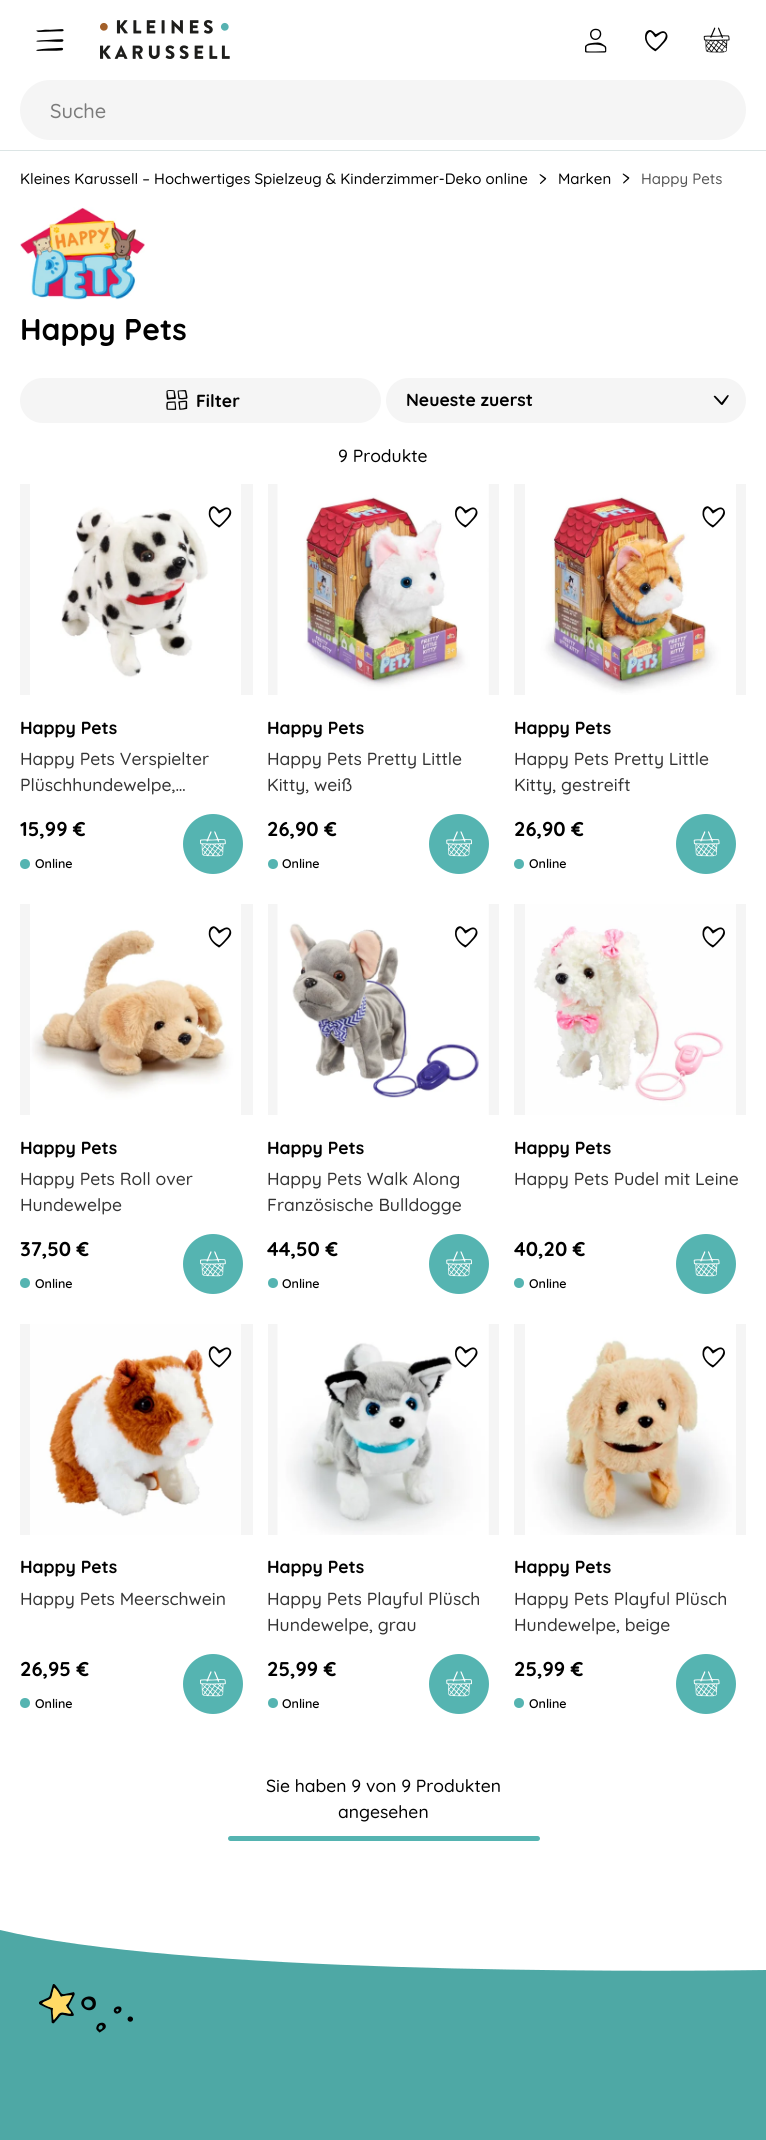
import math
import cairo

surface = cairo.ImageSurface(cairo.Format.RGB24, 766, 2140)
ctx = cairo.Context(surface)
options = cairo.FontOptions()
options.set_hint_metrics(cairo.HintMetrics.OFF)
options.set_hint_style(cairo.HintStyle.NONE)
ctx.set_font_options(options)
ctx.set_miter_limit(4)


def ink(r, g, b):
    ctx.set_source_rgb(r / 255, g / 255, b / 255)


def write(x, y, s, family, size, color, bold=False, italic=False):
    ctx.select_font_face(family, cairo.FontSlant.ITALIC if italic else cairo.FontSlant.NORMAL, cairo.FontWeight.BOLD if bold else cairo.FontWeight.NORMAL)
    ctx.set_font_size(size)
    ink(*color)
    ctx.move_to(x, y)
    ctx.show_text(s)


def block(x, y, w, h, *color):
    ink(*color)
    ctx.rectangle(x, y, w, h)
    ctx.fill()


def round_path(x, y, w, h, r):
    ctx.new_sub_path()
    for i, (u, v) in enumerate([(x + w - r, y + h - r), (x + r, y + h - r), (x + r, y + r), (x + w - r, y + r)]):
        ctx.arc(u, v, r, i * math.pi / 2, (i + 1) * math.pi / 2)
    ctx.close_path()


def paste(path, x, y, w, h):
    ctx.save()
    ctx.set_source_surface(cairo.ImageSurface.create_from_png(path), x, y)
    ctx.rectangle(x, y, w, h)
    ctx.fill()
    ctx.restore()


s1 = dict(family="Quicksand Medium", size=20, color=(123, 123, 123))
s2 = dict(family="Quicksand Medium", size=15, color=(0, 0, 0))
s3 = dict(family="Quicksand Medium", size=15, color=(84, 84, 84))
s4 = dict(family="Quicksand", size=30, color=(0, 0, 0), bold=True)
s5 = dict(family="Quicksand", size=17.5, color=(0, 0, 0), bold=True)
s6 = dict(family="Quicksand Medium", size=17.5, color=(0, 0, 0))
s7 = dict(family="Quicksand Medium", size=17.5, color=(51, 51, 51))
s8 = dict(family="Quicksand", size=20, color=(0, 0, 0), bold=True)
s9 = dict(family="Quicksand SemiBold", size=12.5, color=(0, 0, 0))

ink(255, 255, 255)
ctx.paint()
block(0, 150, 766, 1, 220, 229, 229)
paste("pic1.png", 36, 29, 28, 22)
paste("pic2.png", 100, 20, 130, 39)
paste("pic3.png", 585, 28, 22, 25)
paste("pic4.png", 645, 30, 23, 22)
paste("pic5.png", 703, 27, 27, 26)
ink(245, 245, 245)
round_path(20, 80, 726, 60, 30)
ctx.fill()
write(50, 118, "Suche", **s1)
write(20, 184, "Kleines Karussell – Hochwertiges Spielzeug & Kinderzimmer-Deko online", **s2)
paste("pic6.png", 539, 174, 8, 10)
write(558, 184, "Marken", **s2)
paste("pic7.png", 622, 173, 8, 11)
write(641, 184, "Happy Pets", **s3)
paste("pic8.png", 20, 207, 125, 93)
write(20, 340, "Happy Pets", **s4)
ink(245, 245, 245)
round_path(20, 378, 361, 45, 22.5)
ctx.fill()
paste("pic9.png", 166, 390, 22, 20)
write(196, 407, "Filter", **s5)
ink(245, 245, 245)
round_path(386, 378, 360, 45, 22.5)
ctx.fill()
write(406, 406, "Neueste zuerst", **s5)
paste("pic10.png", 713, 395, 16, 10)
write(338, 462, "9 Produkte", **s6)
block(20, 484, 233, 211, 245, 245, 245)
paste("pic12.png", 30, 484, 211, 211)
paste("pic11.png", 208, 506, 24, 22)
write(20, 734, "Happy Pets", **s5)
write(20, 765, "Happy Pets Verspielter", **s7)
write(20, 791, "Plüschhundewelpe,…", **s7)
write(20, 836, "15,99 €", **s8)
ink(85, 180, 177)
ctx.new_path()
ctx.arc(213, 844, 30, 0, 2 * math.pi)
ctx.fill()
paste("pic13.png", 200, 831, 26, 26)
ctx.arc(25, 864, 5, 0, 2 * math.pi)
ctx.fill()
write(35, 868, "Online", **s9)
block(268, 484, 231, 211, 245, 245, 245)
paste("pic15.png", 277, 484, 212, 211)
paste("pic14.png", 455, 506, 23, 22)
write(267, 734, "Happy Pets", **s5)
write(267, 765, "Happy Pets Pretty Little", **s7)
write(267, 791, "Kitty, weiß", **s7)
write(267, 836, "26,90 €", **s8)
ink(85, 180, 177)
ctx.new_path()
ctx.arc(459, 844, 30, 0, 2 * math.pi)
ctx.fill()
paste("pic16.png", 446, 831, 26, 26)
ctx.arc(273, 864, 5, 0, 2 * math.pi)
ctx.fill()
write(282, 868, "Online", **s9)
block(514, 484, 232, 211, 245, 245, 245)
paste("pic18.png", 525, 484, 211, 211)
paste("pic17.png", 702, 506, 23, 22)
write(514, 734, "Happy Pets", **s5)
write(514, 765, "Happy Pets Pretty Little", **s7)
write(514, 791, "Kitty, gestreift", **s7)
write(514, 836, "26,90 €", **s8)
ink(85, 180, 177)
ctx.new_path()
ctx.arc(706, 844, 30, 0, 2 * math.pi)
ctx.fill()
paste("pic19.png", 693, 831, 27, 26)
ctx.arc(519, 864, 5, 0, 2 * math.pi)
ctx.fill()
write(529, 868, "Online", **s9)
block(20, 904, 233, 211, 245, 245, 245)
paste("pic20.png", 30, 904, 211, 211)
paste("pic11.png", 208, 926, 24, 22)
write(20, 1154, "Happy Pets", **s5)
write(20, 1185, "Happy Pets Roll over", **s7)
write(20, 1211, "Hundewelpe", **s7)
write(20, 1256, "37,50 €", **s8)
ink(85, 180, 177)
ctx.new_path()
ctx.arc(213, 1264, 30, 0, 2 * math.pi)
ctx.fill()
paste("pic13.png", 200, 1251, 26, 26)
ctx.arc(25, 1283, 5, 0, 2 * math.pi)
ctx.fill()
write(35, 1288, "Online", **s9)
block(268, 904, 231, 211, 245, 245, 245)
paste("pic21.png", 277, 904, 212, 211)
paste("pic14.png", 455, 926, 23, 22)
write(267, 1154, "Happy Pets", **s5)
write(267, 1185, "Happy Pets Walk Along", **s7)
write(267, 1211, "Französische Bulldogge", **s7)
write(267, 1256, "44,50 €", **s8)
ink(85, 180, 177)
ctx.new_path()
ctx.arc(459, 1264, 30, 0, 2 * math.pi)
ctx.fill()
paste("pic16.png", 446, 1251, 26, 26)
ctx.arc(273, 1283, 5, 0, 2 * math.pi)
ctx.fill()
write(282, 1288, "Online", **s9)
block(514, 904, 232, 211, 245, 245, 245)
paste("pic23.png", 525, 904, 211, 211)
paste("pic22.png", 702, 926, 23, 22)
write(514, 1154, "Happy Pets", **s5)
write(514, 1185, "Happy Pets Pudel mit Leine", **s7)
write(514, 1256, "40,20 €", **s8)
ink(85, 180, 177)
ctx.new_path()
ctx.arc(706, 1264, 30, 0, 2 * math.pi)
ctx.fill()
paste("pic19.png", 693, 1251, 27, 26)
ctx.arc(519, 1283, 5, 0, 2 * math.pi)
ctx.fill()
write(529, 1288, "Online", **s9)
block(20, 1324, 233, 211, 245, 245, 245)
paste("pic25.png", 30, 1324, 211, 211)
paste("pic24.png", 208, 1346, 24, 22)
write(20, 1573, "Happy Pets", **s5)
write(20, 1605, "Happy Pets Meerschwein", **s7)
write(20, 1676, "26,95 €", **s8)
ink(85, 180, 177)
ctx.new_path()
ctx.arc(213, 1684, 30, 0, 2 * math.pi)
ctx.fill()
paste("pic13.png", 200, 1671, 26, 26)
ctx.arc(25, 1703, 5, 0, 2 * math.pi)
ctx.fill()
write(35, 1708, "Online", **s9)
block(268, 1324, 231, 211, 245, 245, 245)
paste("pic26.png", 277, 1324, 212, 211)
paste("pic14.png", 455, 1346, 23, 22)
write(267, 1573, "Happy Pets", **s5)
write(267, 1605, "Happy Pets Playful Plüsch", **s7)
write(267, 1631, "Hundewelpe, grau", **s7)
write(267, 1676, "25,99 €", **s8)
ink(85, 180, 177)
ctx.new_path()
ctx.arc(459, 1684, 30, 0, 2 * math.pi)
ctx.fill()
paste("pic16.png", 446, 1671, 26, 26)
ctx.arc(273, 1703, 5, 0, 2 * math.pi)
ctx.fill()
write(282, 1708, "Online", **s9)
block(514, 1324, 232, 211, 245, 245, 245)
paste("pic27.png", 525, 1324, 211, 211)
paste("pic17.png", 702, 1346, 23, 22)
write(514, 1573, "Happy Pets", **s5)
write(514, 1605, "Happy Pets Playful Plüsch", **s7)
write(514, 1631, "Hundewelpe, beige", **s7)
write(514, 1676, "25,99 €", **s8)
ink(85, 180, 177)
ctx.new_path()
ctx.arc(706, 1684, 30, 0, 2 * math.pi)
ctx.fill()
paste("pic19.png", 693, 1671, 27, 26)
ctx.arc(519, 1703, 5, 0, 2 * math.pi)
ctx.fill()
write(529, 1708, "Online", **s9)
write(266, 1792, "Sie haben 9 von 9 Produkten", **s6)
write(338, 1818, "angesehen", **s6)
ink(85, 180, 177)
round_path(228, 1836, 312, 5, 2.5)
ctx.fill()
ink(78, 168, 165)
ctx.new_path()
ctx.move_to(766, 1970)
ctx.line_to(766, 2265)
ctx.line_to(359, 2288)
ctx.curve_to(172, 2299, 0, 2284, 0, 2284)
ctx.line_to(0, 1930)
ctx.curve_to(178, 1973, 626, 1972, 766, 1970)
ctx.close_path()
ctx.fill()
paste("pic28.png", 39, 1984, 94, 49)
surface.write_to_png("screenshot.png")
